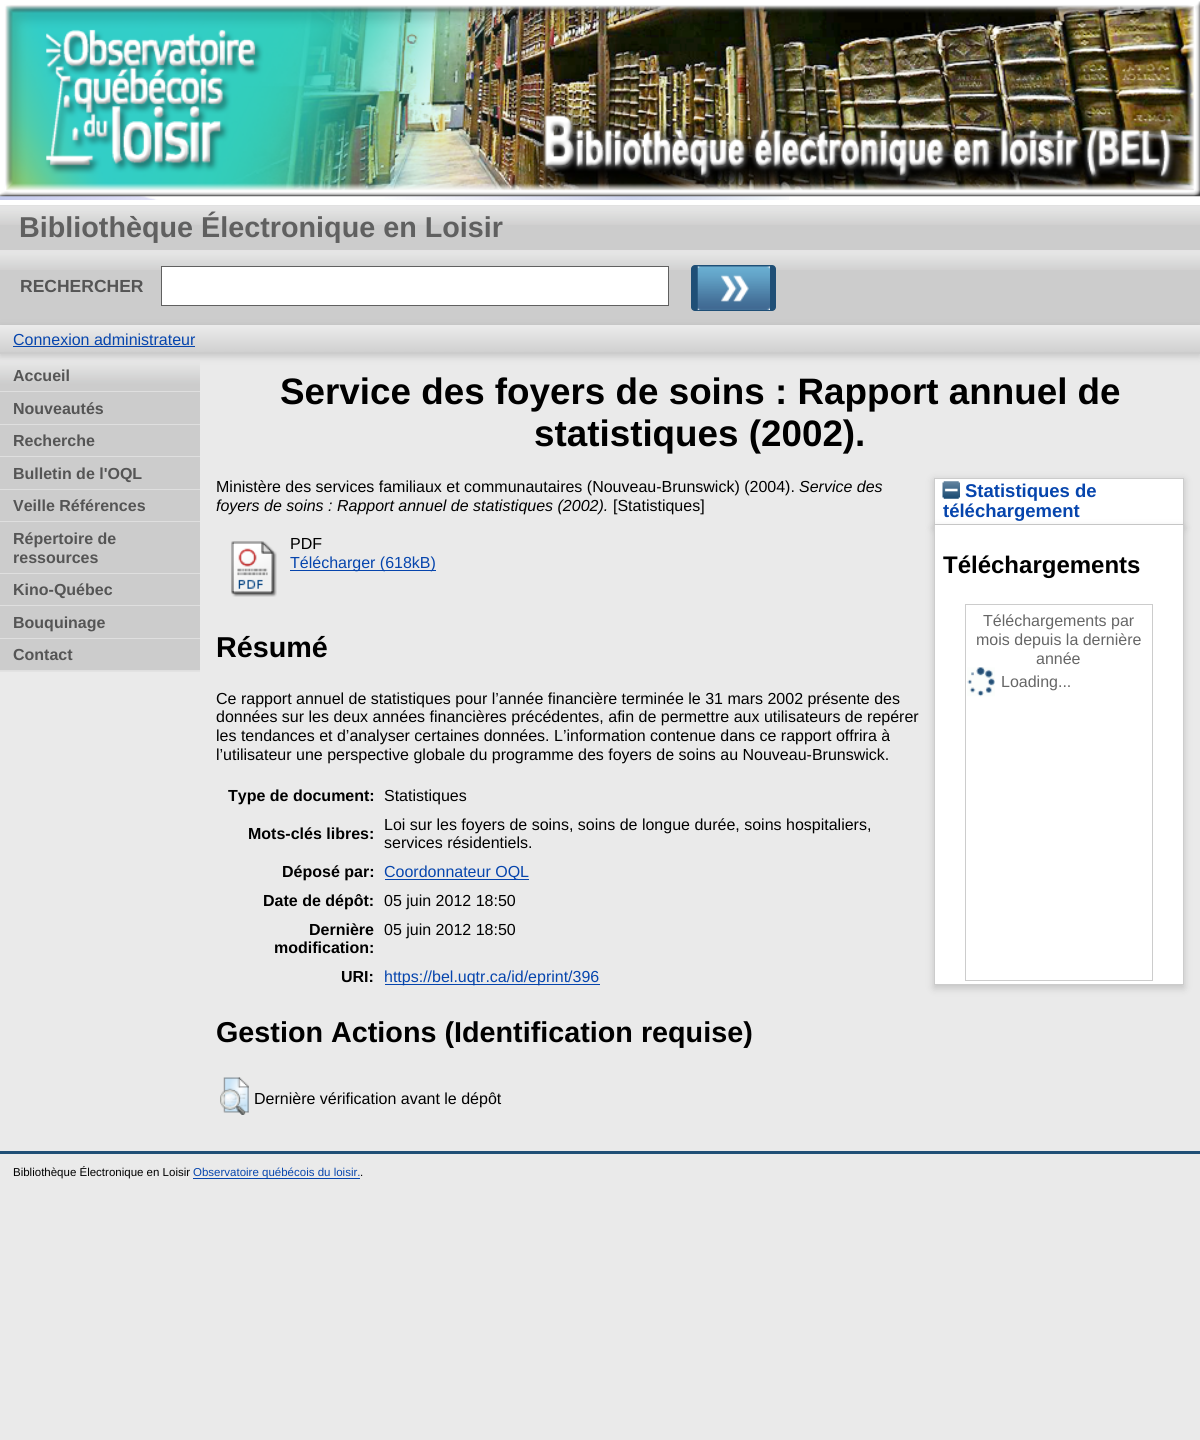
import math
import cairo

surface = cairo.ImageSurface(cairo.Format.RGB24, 1200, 1440)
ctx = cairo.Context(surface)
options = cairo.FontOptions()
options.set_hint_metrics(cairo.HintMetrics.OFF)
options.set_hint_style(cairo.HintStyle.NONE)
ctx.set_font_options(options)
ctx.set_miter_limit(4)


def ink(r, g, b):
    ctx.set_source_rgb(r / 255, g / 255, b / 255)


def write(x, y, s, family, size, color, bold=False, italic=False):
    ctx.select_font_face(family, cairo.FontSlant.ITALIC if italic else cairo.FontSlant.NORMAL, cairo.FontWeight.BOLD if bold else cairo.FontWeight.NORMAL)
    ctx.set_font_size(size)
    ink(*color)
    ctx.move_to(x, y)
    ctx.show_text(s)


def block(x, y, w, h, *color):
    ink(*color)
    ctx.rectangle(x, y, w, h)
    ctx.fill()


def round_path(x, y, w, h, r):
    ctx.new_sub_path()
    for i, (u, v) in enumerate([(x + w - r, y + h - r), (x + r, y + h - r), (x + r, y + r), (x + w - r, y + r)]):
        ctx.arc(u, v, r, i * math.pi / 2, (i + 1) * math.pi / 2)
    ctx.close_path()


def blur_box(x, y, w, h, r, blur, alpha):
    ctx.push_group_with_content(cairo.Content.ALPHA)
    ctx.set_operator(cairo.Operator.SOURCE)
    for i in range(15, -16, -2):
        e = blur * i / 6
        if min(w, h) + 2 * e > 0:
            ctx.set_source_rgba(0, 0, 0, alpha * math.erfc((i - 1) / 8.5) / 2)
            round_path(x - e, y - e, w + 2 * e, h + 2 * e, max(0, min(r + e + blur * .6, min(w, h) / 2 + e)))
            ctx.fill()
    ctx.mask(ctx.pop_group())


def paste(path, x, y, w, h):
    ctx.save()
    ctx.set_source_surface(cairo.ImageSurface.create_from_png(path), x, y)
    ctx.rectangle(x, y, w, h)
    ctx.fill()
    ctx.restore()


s1 = dict(family="Liberation Sans", size=28.75, color=(96, 96, 96), bold=True)
s2 = dict(family="Liberation Sans", size=17.5, color=(85, 85, 85), bold=True)
s3 = dict(family="Liberation Sans", size=16, color=(6, 69, 173))
s4 = dict(family="Liberation Sans", size=16, color=(85, 85, 85), bold=True)
s5 = dict(family="Liberation Sans", size=36.8, color=(0, 0, 0), bold=True)
s6 = dict(family="Liberation Sans", size=16, color=(0, 0, 0))
s7 = dict(family="Liberation Sans", size=16, color=(0, 0, 0), italic=True)
s8 = dict(family="Liberation Sans", size=28.75, color=(0, 0, 0), bold=True)
s9 = dict(family="Liberation Sans", size=16, color=(0, 0, 0), bold=True)
s10 = dict(family="Liberation Sans", size=18.5, color=(6, 69, 173), bold=True)
s11 = dict(family="Liberation Sans", size=24, color=(0, 0, 0), bold=True)
s12 = dict(family="Liberation Sans", size=16, color=(102, 102, 102))
s13 = dict(family="Liberation Sans", size=11.5, color=(0, 0, 0))
s14 = dict(family="Liberation Sans", size=11.5, color=(6, 69, 173))

ink(234, 234, 234)
ctx.paint()
block(0, 196, 1200, 9, 255, 255, 255)
paste("pic1.png", 0, 196, 789, 4)
paste("pic2.png", 0, 0, 1200, 197)
block(0, 225, 1200, 25, 204, 204, 204)
paste("pic3.png", 0, 205, 1200, 20)
write(19, 237, "Bibliothèque Électronique en Loisir", **s1)
block(0, 270, 1200, 55, 204, 204, 204)
paste("pic4.png", 0, 250, 1200, 20)
write(20, 292, "RECHERCHER", **s2)
ink(255, 255, 255)
ctx.rectangle(161.5, 266.5, 507, 39)
ctx.fill_preserve()
ink(96, 96, 96)
ctx.set_line_width(1)
ctx.stroke()
ink(31, 79, 118)
round_path(691, 265, 85, 46, 4)
ctx.fill()
paste("pic5.png", 697, 266, 73, 44)
ink(100, 100, 100)
blur_box(0, 328, 1200, 28, 0, 4, 0.3)
block(0, 325, 1200, 29, 204, 204, 204)
paste("pic6.png", 0, 325, 1200, 27)
write(13, 345, "Connexion administrateur", **s3)
block(13, 346, 182, 1, 6, 69, 173)
paste("pic7.png", 0, 360, 200, 312)
block(0, 391, 200, 1, 223, 223, 223)
write(13, 381, "Accueil", **s4)
block(0, 424, 200, 1, 223, 223, 223)
write(13, 414, "Nouveautés", **s4)
block(0, 456, 200, 1, 223, 223, 223)
write(13, 446, "Recherche", **s4)
block(0, 489, 200, 1, 223, 223, 223)
write(13, 479, "Bulletin de l'OQL", **s4)
block(0, 521, 200, 1, 223, 223, 223)
write(13, 511, "Veille Références", **s4)
block(0, 573, 200, 1, 223, 223, 223)
write(13, 544, "Répertoire de", **s4)
write(13, 563, "ressources", **s4)
block(0, 605, 200, 1, 223, 223, 223)
write(13, 595, "Kino-Québec", **s4)
block(0, 638, 200, 1, 223, 223, 223)
write(13, 628, "Bouquinage", **s4)
block(0, 670, 200, 1, 223, 223, 223)
write(13, 660, "Contact", **s4)
write(280, 404, "Service des foyers de soins : Rapport annuel de", **s5)
write(534, 446, "statistiques (2002).", **s5)
write(216, 492, "Ministère des services familiaux et communautaires (Nouveau-Brunswick) (2004).", **s6)
write(799, 492, "Service des", **s7)
write(216, 511, "foyers de soins : Rapport annuel de statistiques (2002).", **s7)
write(613, 511, "[Statistiques]", **s6)
paste("pic8.png", 231, 541, 46, 56)
write(290, 549, "PDF", **s6)
block(290, 570, 146, 1, 6, 69, 173)
write(290, 568, "Télécharger (618kB)", **s3)
write(216, 657, "Résumé", **s8)
write(216, 704, "Ce rapport annuel de statistiques pour l’année financière terminée le 31 mars 2002 présente des", **s6)
write(216, 722, "données sur les deux années financières précédentes, afin de permettre aux utilisateurs de repérer", **s6)
write(216, 741, "les tendances et d’analyser certaines données. L’information contenue dans ce rapport offrira à", **s6)
write(216, 760, "l’utilisateur une perspective globale du programme des foyers de soins au Nouveau-Brunswick.", **s6)
write(228, 801, "Type de document:", **s9)
write(384, 801, "Statistiques", **s6)
write(248, 839, "Mots-clés libres:", **s9)
write(384, 830, "Loi sur les foyers de soins, soins de longue durée, soins hospitaliers,", **s6)
write(384, 848, "services résidentiels.", **s6)
write(282, 877, "Déposé par:", **s9)
block(385, 879, 144, 1, 6, 69, 173)
write(384, 877, "Coordonnateur OQL", **s3)
write(263, 906, "Date de dépôt:", **s9)
write(384, 906, "05 juin 2012 18:50", **s6)
write(309, 935, "Dernière", **s9)
write(274, 953, "modification:", **s9)
write(384, 935, "05 juin 2012 18:50", **s6)
write(341, 982, "URI:", **s9)
block(385, 984, 215, 1, 6, 69, 173)
write(384, 982, "https://bel.uqtr.ca/id/eprint/396", **s3)
write(216, 1042, "Gestion Actions (Identification requise)", **s8)
paste("pic9.png", 220, 1077, 29, 38)
write(254, 1104, "Dernière vérification avant le dépôt", **s6)
ink(100, 100, 100)
blur_box(934, 480, 250, 48, 0, 4, 0.3)
ink(255, 255, 255)
ctx.rectangle(934.5, 478.5, 249, 46)
ctx.fill_preserve()
ink(204, 204, 204)
ctx.stroke()
paste("pic10.png", 942, 481, 18, 18)
write(965, 497, "Statistiques de", **s10)
ink(100, 100, 100)
blur_box(934, 528, 250, 460, 0, 4, 0.3)
write(943, 517, "téléchargement", **s10)
block(935, 525, 248, 459, 255, 255, 255)
block(1183, 525, 1, 460, 204, 204, 204)
block(934, 984, 250, 1, 204, 204, 204)
block(934, 525, 1, 460, 204, 204, 204)
write(943, 573, "Téléchargements", **s11)
ctx.rectangle(965.5, 604.5, 187, 376)
ink(204, 204, 204)
ctx.stroke()
write(983, 626, "Téléchargements par", **s12)
write(976, 645, "mois depuis la dernière", **s12)
write(1036, 664, "année", **s12)
paste("pic11.png", 967, 667, 28, 30)
write(1001, 687, "Loading...", **s12)
block(0, 1151, 1200, 3, 32, 79, 118)
write(13, 1176, "Bibliothèque Électronique en Loisir", **s13)
block(193, 1178, 167, 1, 6, 69, 173)
write(193, 1176, "Observatoire québécois du loisir.", **s14)
write(360, 1176, ".", **s13)
surface.write_to_png("screenshot.png")
